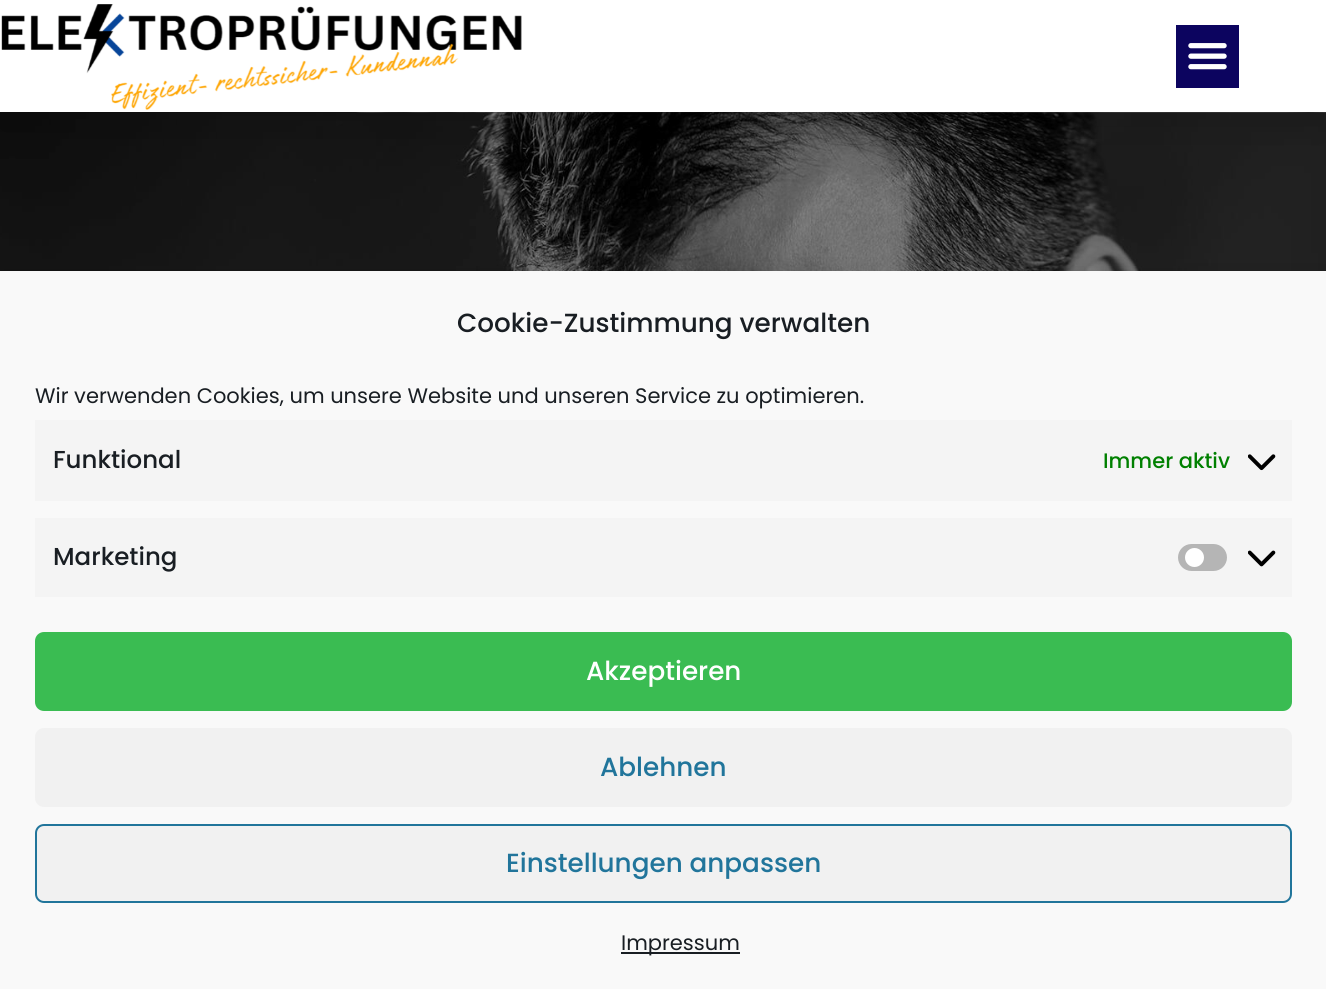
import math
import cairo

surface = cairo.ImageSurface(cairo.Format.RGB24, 1326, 989)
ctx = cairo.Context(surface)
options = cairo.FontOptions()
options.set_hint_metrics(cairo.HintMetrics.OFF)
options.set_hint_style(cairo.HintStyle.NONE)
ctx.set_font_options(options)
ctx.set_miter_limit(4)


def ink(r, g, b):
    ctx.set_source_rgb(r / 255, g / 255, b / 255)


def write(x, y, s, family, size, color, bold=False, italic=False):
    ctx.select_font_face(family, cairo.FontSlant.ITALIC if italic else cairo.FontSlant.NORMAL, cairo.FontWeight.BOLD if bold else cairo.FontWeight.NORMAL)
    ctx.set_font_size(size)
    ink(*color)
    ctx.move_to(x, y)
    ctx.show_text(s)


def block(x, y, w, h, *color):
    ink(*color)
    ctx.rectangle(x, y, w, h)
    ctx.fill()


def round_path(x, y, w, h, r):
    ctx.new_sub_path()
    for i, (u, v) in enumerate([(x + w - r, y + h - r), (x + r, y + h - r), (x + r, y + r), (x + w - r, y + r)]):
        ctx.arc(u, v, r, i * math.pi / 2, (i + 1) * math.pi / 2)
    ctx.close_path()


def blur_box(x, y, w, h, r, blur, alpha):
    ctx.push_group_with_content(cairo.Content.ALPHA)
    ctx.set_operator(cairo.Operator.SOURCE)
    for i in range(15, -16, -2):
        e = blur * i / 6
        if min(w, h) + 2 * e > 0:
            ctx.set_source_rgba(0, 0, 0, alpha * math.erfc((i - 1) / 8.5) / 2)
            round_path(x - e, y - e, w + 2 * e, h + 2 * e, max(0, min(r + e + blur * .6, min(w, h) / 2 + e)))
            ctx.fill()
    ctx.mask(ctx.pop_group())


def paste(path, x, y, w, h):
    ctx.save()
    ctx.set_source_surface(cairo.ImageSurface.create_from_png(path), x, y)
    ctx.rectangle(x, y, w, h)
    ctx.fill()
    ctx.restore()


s1 = dict(family="Poppins Medium", size=26.25, color=(25, 30, 35))
s2 = dict(family="Poppins", size=21, color=(25, 30, 35))
s3 = dict(family="Poppins Medium", size=24.5, color=(25, 30, 35))
s4 = dict(family="Poppins Medium", size=21, color=(0, 128, 0))
s5 = dict(family="Poppins Medium", size=26.25, color=(255, 255, 255))
s6 = dict(family="Poppins Medium", size=26.25, color=(33, 117, 155))

ink(255, 255, 255)
ctx.paint()
paste("pic3.png", 0, 112, 1326, 159)
ctx.save()
ctx.rectangle(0, 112, 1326, 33)
ctx.clip()
ink(0, 0, 0)
blur_box(0, 18, 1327, 112, 0, 17.5, 0.1)
ctx.restore()
paste("pic1.png", 1, 4, 521, 106)
block(1176, 25, 63, 63, 12, 4, 95)
paste("pic2.png", 1188, 43, 39, 27)
ink(0, 0, 0)
blur_box(0, 289, 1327, 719, 0, 17.5, 0.19)
block(0, 273, 1326, 716, 249, 249, 249)
write(457, 332, "Cookie-Zustimmung verwalten", **s1)
write(35, 403, "Wir verwenden Cookies, um unsere Website und unseren Service zu optimieren.", **s2)
block(35, 420, 1257, 81, 244, 244, 244)
write(53, 468, "Funktional", **s3)
write(1103, 468, "Immer aktiv", **s4)
paste("pic4.png", 1248, 454, 28, 17)
block(35, 518, 1257, 79, 244, 244, 244)
write(53, 565, "Marketing", **s3)
ink(181, 181, 181)
round_path(1178, 544, 49, 27, 13.5)
ctx.fill()
ink(255, 255, 255)
ctx.arc(1194.5, 557.5, 9.5, 0, 2 * math.pi)
ctx.fill()
paste("pic5.png", 1248, 550, 28, 17)
ink(58, 188, 82)
round_path(36, 633, 1255, 77, 8)
ctx.fill_preserve()
ctx.stroke()
write(586, 680, "Akzeptieren", **s5)
ink(241, 241, 241)
round_path(35, 728, 1257, 79, 9)
ctx.fill()
write(600, 776, "Ablehnen", **s6)
ink(241, 241, 241)
round_path(36, 825, 1255, 77, 8)
ctx.fill_preserve()
ink(33, 117, 155)
ctx.stroke()
write(506, 872, "Einstellungen anpassen", **s6)
block(621, 952, 119, 2, 25, 30, 35)
write(621, 950, "Impressum", **s2)
surface.write_to_png("screenshot.png")
